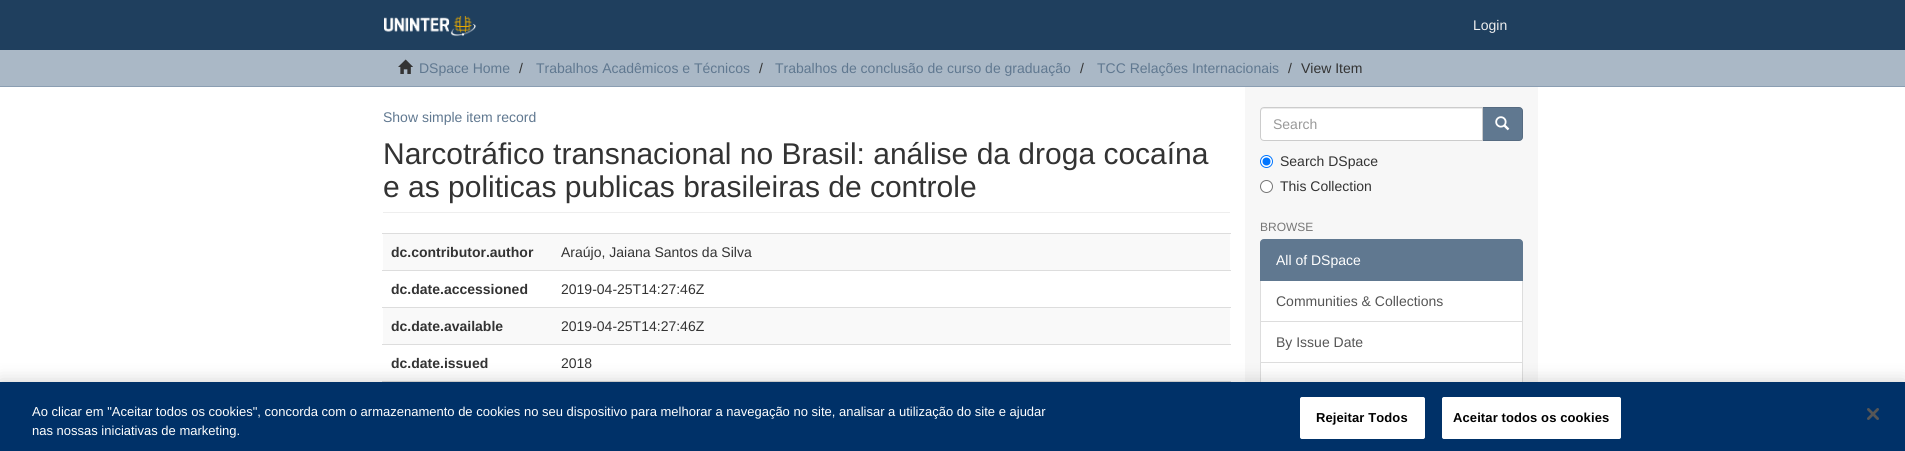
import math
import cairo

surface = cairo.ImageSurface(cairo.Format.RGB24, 1905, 451)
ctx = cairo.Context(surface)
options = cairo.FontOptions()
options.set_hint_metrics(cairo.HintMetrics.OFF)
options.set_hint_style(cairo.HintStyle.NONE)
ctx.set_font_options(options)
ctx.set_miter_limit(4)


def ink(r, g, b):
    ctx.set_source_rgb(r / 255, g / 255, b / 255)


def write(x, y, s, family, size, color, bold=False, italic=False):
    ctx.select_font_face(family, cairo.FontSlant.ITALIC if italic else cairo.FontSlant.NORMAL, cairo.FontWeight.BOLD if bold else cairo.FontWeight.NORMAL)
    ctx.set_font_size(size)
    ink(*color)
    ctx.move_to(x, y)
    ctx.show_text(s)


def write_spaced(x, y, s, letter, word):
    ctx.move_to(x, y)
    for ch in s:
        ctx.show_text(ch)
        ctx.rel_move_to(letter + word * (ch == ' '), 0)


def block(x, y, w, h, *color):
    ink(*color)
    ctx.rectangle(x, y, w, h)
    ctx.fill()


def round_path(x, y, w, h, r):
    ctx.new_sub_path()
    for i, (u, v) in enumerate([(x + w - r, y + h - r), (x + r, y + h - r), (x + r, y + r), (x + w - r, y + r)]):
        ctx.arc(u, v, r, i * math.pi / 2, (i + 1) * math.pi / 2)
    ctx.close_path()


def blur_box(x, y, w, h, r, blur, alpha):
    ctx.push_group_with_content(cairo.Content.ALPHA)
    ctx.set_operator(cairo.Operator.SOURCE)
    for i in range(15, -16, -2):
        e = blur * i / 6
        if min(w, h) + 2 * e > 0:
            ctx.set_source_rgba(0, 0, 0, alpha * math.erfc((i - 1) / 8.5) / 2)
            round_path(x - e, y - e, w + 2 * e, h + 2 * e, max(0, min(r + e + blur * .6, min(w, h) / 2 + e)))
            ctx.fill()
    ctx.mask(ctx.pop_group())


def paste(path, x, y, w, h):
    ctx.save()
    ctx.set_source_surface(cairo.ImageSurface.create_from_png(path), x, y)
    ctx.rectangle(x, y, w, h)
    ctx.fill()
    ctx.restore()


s1 = dict(family="Liberation Sans", size=14, color=(238, 238, 238))
s2 = dict(family="Liberation Sans", size=14, color=(96, 120, 144))
s3 = dict(family="Liberation Sans", size=14, color=(51, 51, 51))
s4 = dict(family="Liberation Sans", size=30, color=(51, 51, 51))
s5 = dict(family="Liberation Sans", size=14, color=(51, 51, 51), bold=True)
s6 = dict(family="Liberation Sans", size=14, color=(153, 153, 153))
s7 = dict(family="Liberation Sans", size=12, color=(119, 119, 119))
s8 = dict(family="Liberation Sans", size=14, color=(255, 255, 255))
s9 = dict(family="Liberation Sans", size=14, color=(85, 85, 85))
s10 = dict(family="Liberation Sans", size=13, color=(255, 255, 255))

ink(255, 255, 255)
ctx.paint()
block(0, 0, 1905, 50, 31, 63, 94)
paste("pic1.png", 384, 16, 92, 21)
write(1473, 30, "Login", **s1)
block(0, 50, 1905, 36, 170, 184, 198)
block(0, 86, 1905, 1, 139, 158, 178)
paste("pic2.png", 398, 59, 15, 15)
write(419, 73, "DSpace Home", **s2)
write(519, 73, "/", **s3)
write(536, 73, "Trabalhos Acadêmicos e Técnicos", **s2)
write(759, 73, "/", **s3)
write(775, 73, "Trabalhos de conclusão de curso de graduação", **s2)
write(1080, 73, "/", **s3)
write(1097, 73, "TCC Relações Internacionais", **s2)
write(1288, 73, "/", **s3)
write(1301, 73, "View Item", **s3)
block(1245, 87, 293, 295, 247, 247, 247)
write(383, 122, "Show simple item record", **s2)
block(383, 212, 847, 1, 238, 238, 238)
write(383, 164, "Narcotráfico transnacional no Brasil: análise da droga cocaína", **s4)
write(383, 197, "e as politicas publicas brasileiras de controle", **s4)
block(383, 234, 847, 36, 249, 249, 249)
block(382, 233, 849, 1, 221, 221, 221)
write(391, 257, "dc.contributor.author", **s5)
write(561, 257, "Araújo, Jaiana Santos da Silva", **s3)
block(382, 270, 849, 1, 221, 221, 221)
write(391, 294, "dc.date.accessioned", **s5)
write(561, 294, "2019-04-25T14:27:46Z", **s3)
block(383, 308, 847, 36, 249, 249, 249)
block(382, 307, 849, 1, 221, 221, 221)
write(391, 331, "dc.date.available", **s5)
write(561, 331, "2019-04-25T14:27:46Z", **s3)
block(382, 344, 849, 1, 221, 221, 221)
write(391, 368, "dc.date.issued", **s5)
write(561, 368, "2018", **s3)
block(382, 381, 849, 1, 221, 221, 221)
ink(96, 120, 144)
ctx.new_path()
ctx.move_to(1482.5, 107.5)
ctx.line_to(1519, 107.5)
ctx.curve_to(1521, 107.5, 1522.5, 109, 1522.5, 111)
ctx.line_to(1522.5, 137)
ctx.curve_to(1522.5, 139, 1521, 140.5, 1519, 140.5)
ctx.line_to(1482.5, 140.5)
ctx.close_path()
ctx.fill_preserve()
ink(86, 107, 129)
ctx.set_line_width(1)
ctx.stroke()
ink(255, 255, 255)
ctx.new_path()
ctx.move_to(1264, 107)
ctx.line_to(1483, 107)
ctx.line_to(1483, 141)
ctx.line_to(1264, 141)
ctx.curve_to(1262, 141, 1260, 139, 1260, 137)
ctx.line_to(1260, 111)
ctx.curve_to(1260, 109, 1262, 107, 1264, 107)
ctx.close_path()
ctx.fill()
ink(236, 236, 236)
ctx.new_path()
ctx.move_to(1264, 109)
ctx.line_to(1482, 109)
ctx.line_to(1482, 108)
ctx.line_to(1264, 108)
ctx.curve_to(1262, 108, 1261, 109, 1261, 111)
ctx.line_to(1261, 112)
ctx.curve_to(1261, 110, 1262, 109, 1264, 109)
ctx.close_path()
ctx.fill()
ctx.new_path()
ctx.move_to(1264, 107.5)
ctx.line_to(1482.5, 107.5)
ctx.line_to(1482.5, 140.5)
ctx.line_to(1264, 140.5)
ctx.curve_to(1262, 140.5, 1260.5, 139, 1260.5, 137)
ctx.line_to(1260.5, 111)
ctx.curve_to(1260.5, 109, 1262, 107.5, 1264, 107.5)
ctx.close_path()
ink(204, 204, 204)
ctx.stroke()
write(1273, 129, "Search", **s6)
paste("pic3.png", 1495, 116, 15, 15)
ink(255, 255, 255)
ctx.arc(1266.5, 161.5, 6, 0, 2 * math.pi)
ctx.fill_preserve()
ink(0, 117, 255)
ctx.stroke()
ctx.arc(1266.5, 161.5, 4, 0, 2 * math.pi)
ctx.fill()
write(1280, 166, "Search DSpace", **s3)
ink(255, 255, 255)
ctx.new_path()
ctx.arc(1266.5, 186.5, 6, 0, 2 * math.pi)
ctx.fill_preserve()
ink(118, 118, 118)
ctx.stroke()
write(1280, 191, "This Collection", **s3)
write(1260, 231, "BROWSE", **s7)
ink(255, 255, 255)
ctx.rectangle(1260.5, 280.5, 262, 41)
ctx.fill_preserve()
ink(221, 221, 221)
ctx.stroke()
ink(96, 120, 144)
ctx.new_path()
ctx.move_to(1264, 239.5)
ctx.line_to(1519, 239.5)
ctx.curve_to(1521, 239.5, 1522.5, 241, 1522.5, 243)
ctx.line_to(1522.5, 280.5)
ctx.line_to(1260.5, 280.5)
ctx.line_to(1260.5, 243)
ctx.curve_to(1260.5, 241, 1262, 239.5, 1264, 239.5)
ctx.close_path()
ctx.fill_preserve()
ctx.stroke()
write(1276, 265, "All of DSpace", **s8)
write(1276, 306, "Communities & Collections", **s9)
ink(255, 255, 255)
ctx.rectangle(1260.5, 321.5, 262, 41)
ctx.fill_preserve()
ink(221, 221, 221)
ctx.stroke()
write(1276, 347, "By Issue Date", **s9)
block(1261, 363, 261, 19, 255, 255, 255)
ctx.rectangle(1260.5, 362.5, 262, 41)
ink(221, 221, 221)
ctx.stroke()
ink(0, 0, 0)
blur_box(0, 382, 1905, 69, 0, 9, 0.2)
block(0, 382, 1905, 69, 0, 49, 104)
write(32, 416, "Ao clicar em \"Aceitar todos os cookies\", concorda com o armazenamento de cookies no seu dispositivo para melhorar a navegação no site, analisar a utilização do site e ajudar", **s10)
write(32, 435, "nas nossas iniciativas de marketing.", **s10)
round_path(1300.5, 397.5, 124, 41, 1.5)
ctx.fill_preserve()
ctx.stroke()
ctx.select_font_face("Liberation Sans", cairo.FontSlant.NORMAL, cairo.FontWeight.BOLD)
ink(0, 0, 0)
write_spaced(1316, 422, "Rejeitar Todos", 0.1, 0)
ink(255, 255, 255)
round_path(1442.5, 397.5, 178, 41, 1.5)
ctx.fill_preserve()
ctx.stroke()
ink(0, 0, 0)
write_spaced(1453, 422, "Aceitar todos os cookies", 0.1, 0)
paste("pic4.png", 1867, 408, 12, 12)
surface.write_to_png("screenshot.png")
